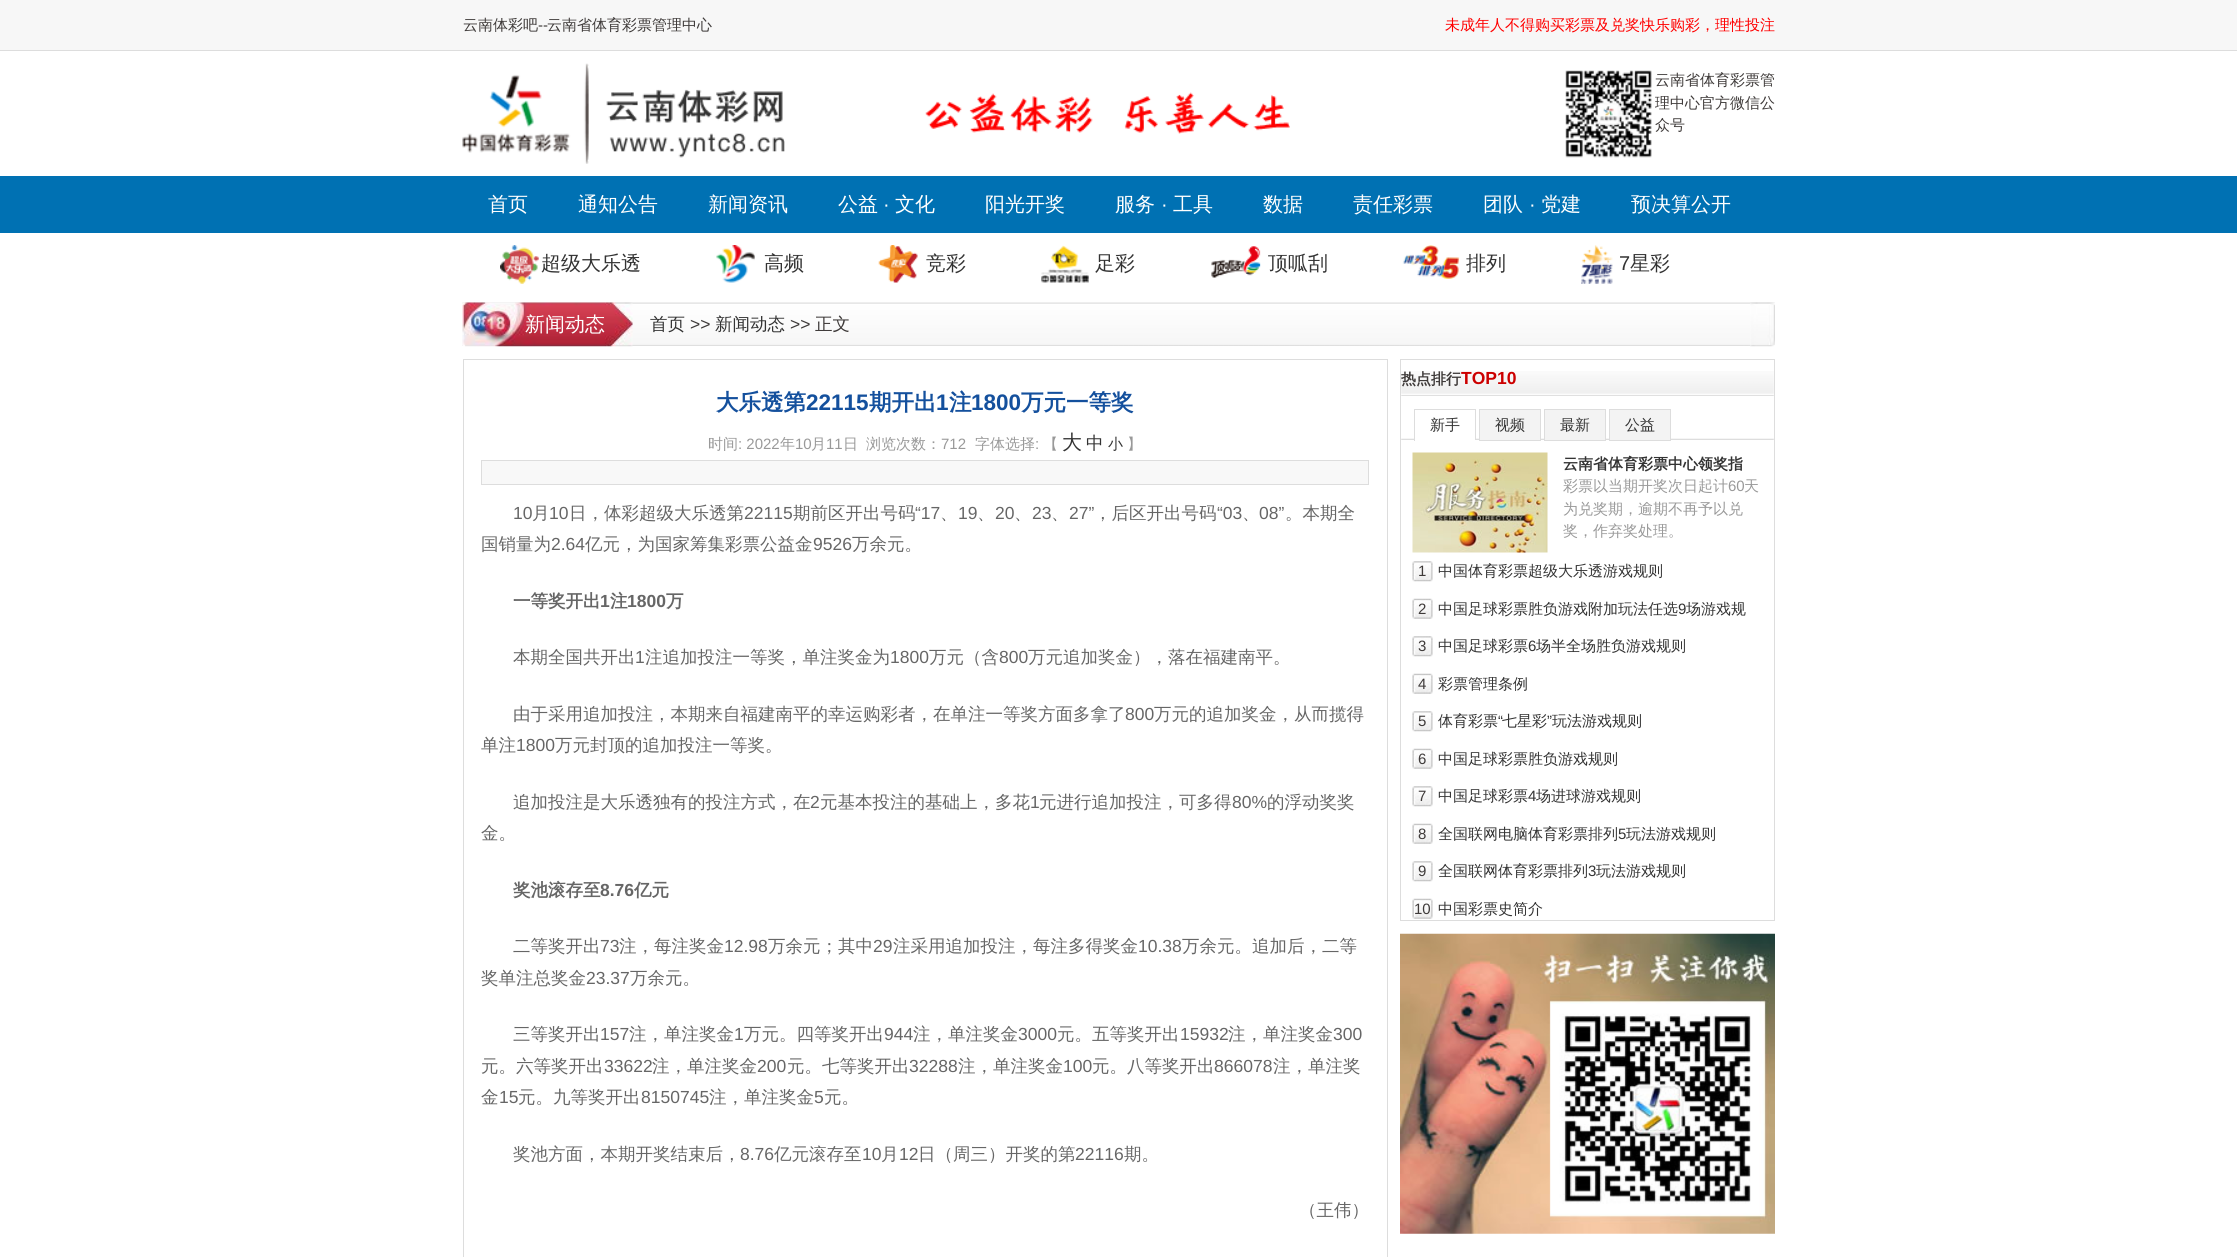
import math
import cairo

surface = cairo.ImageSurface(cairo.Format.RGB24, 2237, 1257)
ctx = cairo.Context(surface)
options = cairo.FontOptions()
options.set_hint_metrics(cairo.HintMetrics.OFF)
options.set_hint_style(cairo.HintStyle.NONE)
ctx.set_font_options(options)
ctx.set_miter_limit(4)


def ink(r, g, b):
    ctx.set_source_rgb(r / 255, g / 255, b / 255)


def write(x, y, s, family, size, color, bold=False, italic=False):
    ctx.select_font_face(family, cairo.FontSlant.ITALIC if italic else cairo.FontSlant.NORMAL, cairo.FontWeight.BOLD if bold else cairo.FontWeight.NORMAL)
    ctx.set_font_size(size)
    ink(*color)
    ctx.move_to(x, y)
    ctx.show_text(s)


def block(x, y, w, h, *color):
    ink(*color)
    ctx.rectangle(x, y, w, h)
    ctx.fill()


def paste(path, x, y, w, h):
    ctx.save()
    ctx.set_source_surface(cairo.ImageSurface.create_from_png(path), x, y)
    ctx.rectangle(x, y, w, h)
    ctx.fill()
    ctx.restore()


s1 = dict(family="WenQuanYi Zen Hei Medium", size=15, color=(62, 58, 57))
s2 = dict(family="Liberation Sans", size=15, color=(62, 58, 57))
s3 = dict(family="WenQuanYi Zen Hei Medium", size=15, color=(255, 0, 0))
s4 = dict(family="WenQuanYi Zen Hei Medium", size=20, color=(255, 255, 255))
s5 = dict(family="Liberation Sans", size=20, color=(255, 255, 255))
s6 = dict(family="WenQuanYi Zen Hei Medium", size=20, color=(51, 51, 51))
s7 = dict(family="Liberation Sans", size=20, color=(51, 51, 51))
s8 = dict(family="WenQuanYi Zen Hei Medium", size=17.5, color=(51, 51, 51))
s9 = dict(family="Liberation Sans", size=17.5, color=(62, 58, 57))
s10 = dict(family="WenQuanYi Zen Hei Medium", size=17.5, color=(62, 58, 57))
s11 = dict(family="WenQuanYi Zen Hei", size=22.5, color=(20, 80, 157), bold=True)
s12 = dict(family="Liberation Sans", size=22.5, color=(20, 80, 157), bold=True)
s13 = dict(family="WenQuanYi Zen Hei Medium", size=15, color=(153, 153, 153))
s14 = dict(family="Liberation Sans", size=15, color=(153, 153, 153))
s15 = dict(family="WenQuanYi Zen Hei Medium", size=15, color=(51, 51, 51))
s16 = dict(family="Liberation Sans", size=17.5, color=(102, 102, 102))
s17 = dict(family="WenQuanYi Zen Hei Medium", size=17.5, color=(102, 102, 102))
s18 = dict(family="WenQuanYi Zen Hei", size=17.5, color=(102, 102, 102), bold=True)
s19 = dict(family="Liberation Sans", size=17.5, color=(102, 102, 102), bold=True)
s20 = dict(family="WenQuanYi Zen Hei", size=15, color=(62, 58, 57), bold=True)
s21 = dict(family="Liberation Sans", size=17.5, color=(204, 0, 0), bold=True)
s22 = dict(family="WenQuanYi Zen Hei", size=15, color=(51, 51, 51), bold=True)
s23 = dict(family="Liberation Sans", size=15, color=(51, 51, 51))

ink(255, 255, 255)
ctx.paint()
block(0, 0, 2237, 50, 247, 247, 247)
block(0, 50, 2237, 1, 221, 221, 221)
write(463, 30, "云南体彩吧", **s1)
write(538, 30, "--", **s2)
write(547, 30, "云南省体育彩票管理中心", **s1)
write(1445, 30, "未成年人不得购买彩票及兑奖快乐购彩，理性投注", **s3)
paste("pic1.png", 462, 63, 323, 101)
paste("pic2.png", 925, 92, 365, 42)
paste("pic3.png", 1565, 70, 87, 88)
write(1655, 85, "云南省体育彩票管", **s1)
write(1655, 108, "理中心官方微信公", **s1)
write(1655, 130, "众号", **s1)
block(0, 176, 2237, 57, 0, 113, 179)
write(488, 211, "首页", **s4)
write(578, 211, "通知公告", **s4)
write(708, 211, "新闻资讯", **s4)
write(838, 211, "公益", **s4)
write(883, 211, "·", **s5)
write(895, 211, "文化", **s4)
write(985, 211, "阳光开奖", **s4)
write(1115, 211, "服务", **s4)
write(1161, 211, "·", **s5)
write(1173, 211, "工具", **s4)
write(1263, 211, "数据", **s4)
write(1353, 211, "责任彩票", **s4)
write(1483, 211, "团队", **s4)
write(1529, 211, "·", **s5)
write(1541, 211, "党建", **s4)
write(1631, 211, "预决算公开", **s4)
paste("pic4.png", 500, 245, 39, 39)
write(541, 270, "超级大乐透", **s6)
paste("pic5.png", 716, 245, 39, 38)
write(764, 270, "高频", **s6)
paste("pic6.png", 878, 245, 40, 38)
write(926, 270, "竞彩", **s6)
paste("pic7.png", 1041, 245, 48, 38)
write(1095, 270, "足彩", **s6)
paste("pic8.png", 1211, 246, 50, 32)
write(1268, 270, "顶呱刮", **s6)
paste("pic9.png", 1402, 245, 58, 34)
write(1466, 270, "排列", **s6)
paste("pic10.png", 1581, 245, 32, 39)
write(1619, 270, "7", **s7)
write(1630, 270, "星彩", **s6)
paste("pic11.png", 462, 302, 1313, 44)
paste("pic12.png", 462, 302, 171, 45)
write(525, 331, "新闻动态", **s4)
write(650, 330, "首页", **s8)
write(690, 330, ">>", **s9)
write(715, 330, "新闻动态", **s8)
write(790, 330, ">>", **s9)
write(815, 330, "正文", **s10)
paste("pic13.png", 1750, 302, 25, 45)
ctx.rectangle(463.5, 359.5, 924, 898)
ink(221, 221, 221)
ctx.set_line_width(1)
ctx.stroke()
write(716, 410, "大乐透第", **s11)
write(806, 410, "22115", **s12)
write(869, 410, "期开出", **s11)
write(936, 410, "1", **s12)
write(949, 410, "注", **s11)
write(971, 410, "1800", **s12)
write(1021, 410, "万元一等奖", **s11)
write(708, 449, "时间", **s13)
write(738, 449, ": 2022", **s14)
write(780, 449, "年", **s13)
write(795, 449, "10", **s14)
write(811, 449, "月", **s13)
write(826, 449, "11", **s14)
write(843, 449, "日", **s13)
write(866, 449, "浏览次数：", **s13)
write(941, 449, "712", **s14)
write(975, 449, "字体选择", **s13)
write(1035, 449, ":", **s14)
write(1043, 449, "【", **s13)
write(1062, 449, "大", **s6)
write(1086, 449, "中", **s8)
write(1108, 449, "小", **s15)
write(1127, 449, "】", **s13)
ink(248, 248, 248)
ctx.rectangle(481.5, 460.5, 887, 24)
ctx.fill_preserve()
ink(221, 221, 221)
ctx.stroke()
write(513, 519, "10", **s16)
write(532, 519, "月", **s17)
write(549, 519, "10", **s16)
write(569, 519, "日，体彩超级大乐透第", **s17)
write(744, 519, "22115", **s16)
write(793, 519, "期前区开出号码", **s17)
write(915, 519, "“17", **s16)
write(940, 519, "、", **s17)
write(958, 519, "19", **s16)
write(977, 519, "、", **s17)
write(995, 519, "20", **s16)
write(1014, 519, "、", **s17)
write(1032, 519, "23", **s16)
write(1051, 519, "、", **s17)
write(1069, 519, "27”", **s16)
write(1094, 519, "，后区开出号码", **s17)
write(1217, 519, "“03", **s16)
write(1242, 519, "、", **s17)
write(1259, 519, "08”", **s16)
write(1285, 519, "。本期全", **s17)
write(481, 550, "国销量为", **s17)
write(551, 550, "2.64", **s16)
write(585, 550, "亿元，为国家筹集彩票公益金", **s17)
write(813, 550, "9526", **s16)
write(852, 550, "万余元。", **s17)
write(513, 607, "一等奖开出", **s18)
write(600, 607, "1", **s19)
write(610, 607, "注", **s18)
write(627, 607, "1800", **s19)
write(666, 607, "万", **s18)
write(513, 663, "本期全国共开出", **s17)
write(635, 663, "1", **s16)
write(645, 663, "注追加投注一等奖，单注奖金为", **s17)
write(890, 663, "1800", **s16)
write(929, 663, "万元（含", **s17)
write(999, 663, "800", **s16)
write(1028, 663, "万元追加奖金），落在福建南平。", **s17)
write(513, 720, "由于采用追加投注，本期来自福建南平的幸运购彩者，在单注一等奖方面多拿了", **s17)
write(1125, 720, "800", **s16)
write(1154, 720, "万元的追加奖金，从而揽得", **s17)
write(481, 751, "单注", **s17)
write(516, 751, "1800", **s16)
write(555, 751, "万元封顶的追加投注一等奖。", **s17)
write(513, 808, "追加投注是大乐透独有的投注方式，在", **s17)
write(810, 808, "2", **s16)
write(820, 808, "元基本投注的基础上，多花", **s17)
write(1030, 808, "1", **s16)
write(1039, 808, "元进行追加投注，可多得", **s17)
write(1232, 808, "80%", **s16)
write(1267, 808, "的浮动奖奖", **s17)
write(481, 839, "金。", **s17)
write(513, 896, "奖池滚存至", **s18)
write(600, 896, "8.76", **s19)
write(634, 896, "亿元", **s18)
write(513, 952, "二等奖开出", **s17)
write(600, 952, "73", **s16)
write(619, 952, "注，每注奖金", **s17)
write(724, 952, "12.98", **s16)
write(768, 952, "万余元；其中", **s17)
write(873, 952, "29", **s16)
write(893, 952, "注采用追加投注，每注多得奖金", **s17)
write(1138, 952, "10.38", **s16)
write(1182, 952, "万余元。追加后，二等", **s17)
write(481, 984, "奖单注总奖金", **s17)
write(586, 984, "23.37", **s16)
write(630, 984, "万余元。", **s17)
write(513, 1040, "三等奖开出", **s17)
write(600, 1040, "157", **s16)
write(629, 1040, "注，单注奖金", **s17)
write(734, 1040, "1", **s16)
write(744, 1040, "万元。四等奖开出", **s17)
write(884, 1040, "944", **s16)
write(913, 1040, "注，单注奖金", **s17)
write(1018, 1040, "3000", **s16)
write(1057, 1040, "元。五等奖开出", **s17)
write(1180, 1040, "15932", **s16)
write(1228, 1040, "注，单注奖金", **s17)
write(1333, 1040, "300", **s16)
write(481, 1072, "元。六等奖开出", **s17)
write(604, 1072, "33622", **s16)
write(652, 1072, "注，单注奖金", **s17)
write(757, 1072, "200", **s16)
write(787, 1072, "元。七等奖开出", **s17)
write(909, 1072, "32288", **s16)
write(958, 1072, "注，单注奖金", **s17)
write(1063, 1072, "100", **s16)
write(1092, 1072, "元。八等奖开出", **s17)
write(1214, 1072, "866078", **s16)
write(1273, 1072, "注，单注奖", **s17)
write(481, 1103, "金", **s17)
write(499, 1103, "15", **s16)
write(518, 1103, "元。九等奖开出", **s17)
write(641, 1103, "8150745", **s16)
write(709, 1103, "注，单注奖金", **s17)
write(814, 1103, "5", **s16)
write(824, 1103, "元。", **s17)
write(513, 1160, "奖池方面，本期开奖结束后，", **s17)
write(740, 1160, "8.76", **s16)
write(774, 1160, "亿元滚存至", **s17)
write(862, 1160, "10", **s16)
write(881, 1160, "月", **s17)
write(899, 1160, "12", **s16)
write(918, 1160, "日（周三）开奖的第", **s17)
write(1075, 1160, "22116", **s16)
write(1124, 1160, "期。", **s17)
write(1299, 1216, "（王伟）", **s17)
ctx.rectangle(1400.5, 359.5, 374, 561)
ink(221, 221, 221)
ctx.stroke()
paste("pic14.png", 1401, 371, 373, 25)
write(1401, 384, "热点排行", **s20)
write(1461, 384, "TOP10", **s21)
paste("pic15.png", 1401, 438, 373, 2)
block(1415, 438, 60, 2, 255, 255, 255)
block(1414, 409, 62, 1, 221, 221, 221)
block(1475, 409, 1, 32, 221, 221, 221)
block(1475, 440, 1, 1, 255, 255, 255)
block(1414, 409, 1, 32, 221, 221, 221)
write(1430, 430, "新手", **s15)
ink(243, 243, 243)
ctx.rectangle(1479.5, 409.5, 61, 31)
ctx.fill_preserve()
ink(221, 221, 221)
ctx.stroke()
write(1495, 430, "视频", **s15)
ink(243, 243, 243)
ctx.rectangle(1544.5, 409.5, 61, 31)
ctx.fill_preserve()
ink(221, 221, 221)
ctx.stroke()
write(1560, 430, "最新", **s15)
ink(243, 243, 243)
ctx.rectangle(1609.5, 409.5, 61, 31)
ctx.fill_preserve()
ink(221, 221, 221)
ctx.stroke()
write(1625, 430, "公益", **s15)
paste("pic16.png", 1412, 452, 136, 101)
write(1563, 469, "云南省体育彩票中心领奖指", **s22)
write(1563, 491, "彩票以当期开奖次日起计", **s13)
write(1728, 491, "60", **s14)
write(1744, 491, "天", **s13)
write(1563, 514, "为兑奖期，逾期不再予以兑", **s13)
write(1563, 536, "奖，作弃奖处理。", **s13)
paste("pic17.png", 1412, 561, 21, 21)
write(1418, 576, "1", **s2)
write(1438, 576, "中国体育彩票超级大乐透游戏规则", **s15)
paste("pic18.png", 1412, 598, 21, 21)
write(1418, 614, "2", **s2)
write(1438, 614, "中国足球彩票胜负游戏附加玩法任选", **s15)
write(1678, 614, "9", **s23)
write(1686, 614, "场游戏规", **s15)
paste("pic17.png", 1412, 636, 21, 21)
write(1418, 651, "3", **s2)
write(1438, 651, "中国足球彩票", **s15)
write(1528, 651, "6", **s23)
write(1536, 651, "场半全场胜负游戏规则", **s15)
paste("pic18.png", 1412, 673, 21, 21)
write(1418, 689, "4", **s2)
write(1438, 689, "彩票管理条例", **s15)
paste("pic17.png", 1412, 711, 21, 21)
write(1418, 726, "5", **s2)
write(1438, 726, "体育彩票", **s15)
write(1498, 726, "“", **s23)
write(1502, 726, "七星彩", **s15)
write(1547, 726, "”", **s23)
write(1552, 726, "玩法游戏规则", **s15)
paste("pic18.png", 1412, 748, 21, 21)
write(1418, 764, "6", **s2)
write(1438, 764, "中国足球彩票胜负游戏规则", **s15)
paste("pic17.png", 1412, 786, 21, 21)
write(1418, 801, "7", **s2)
write(1438, 801, "中国足球彩票", **s15)
write(1528, 801, "4", **s23)
write(1536, 801, "场进球游戏规则", **s15)
paste("pic18.png", 1412, 823, 21, 21)
write(1418, 839, "8", **s2)
write(1438, 839, "全国联网电脑体育彩票排列", **s15)
write(1618, 839, "5", **s23)
write(1626, 839, "玩法游戏规则", **s15)
paste("pic17.png", 1412, 861, 21, 21)
write(1418, 876, "9", **s2)
write(1438, 876, "全国联网体育彩票排列", **s15)
write(1588, 876, "3", **s23)
write(1596, 876, "玩法游戏规则", **s15)
paste("pic18.png", 1412, 898, 21, 21)
write(1414, 914, "10", **s2)
write(1438, 914, "中国彩票史简介", **s15)
paste("pic19.png", 1400, 933, 375, 301)
surface.write_to_png("screenshot.png")
